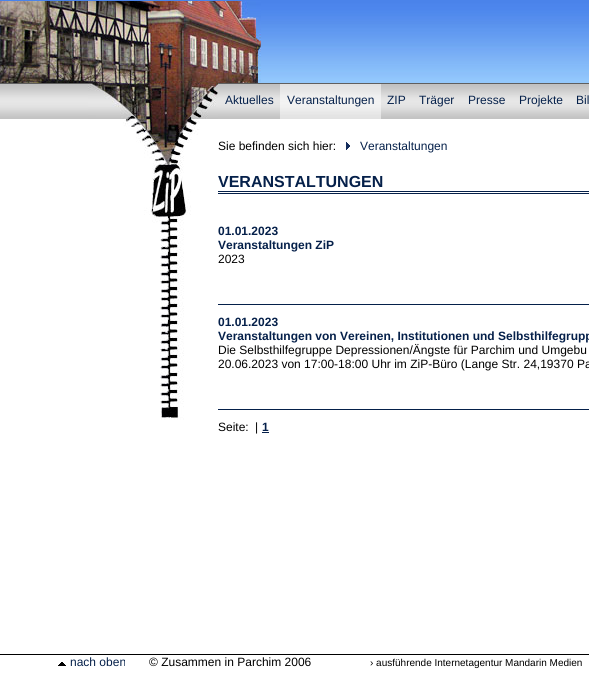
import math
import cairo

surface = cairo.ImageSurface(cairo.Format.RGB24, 589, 676)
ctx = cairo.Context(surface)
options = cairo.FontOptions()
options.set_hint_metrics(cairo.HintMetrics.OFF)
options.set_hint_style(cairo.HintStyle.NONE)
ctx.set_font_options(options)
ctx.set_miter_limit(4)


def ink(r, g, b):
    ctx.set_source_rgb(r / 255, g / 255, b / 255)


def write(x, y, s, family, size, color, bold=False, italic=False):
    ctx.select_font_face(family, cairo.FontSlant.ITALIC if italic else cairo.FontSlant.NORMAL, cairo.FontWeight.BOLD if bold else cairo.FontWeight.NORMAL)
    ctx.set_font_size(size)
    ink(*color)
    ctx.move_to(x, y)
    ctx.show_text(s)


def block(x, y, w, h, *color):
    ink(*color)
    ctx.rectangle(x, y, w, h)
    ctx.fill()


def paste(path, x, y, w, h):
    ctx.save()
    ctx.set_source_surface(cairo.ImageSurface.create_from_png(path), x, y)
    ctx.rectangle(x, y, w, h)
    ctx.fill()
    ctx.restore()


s1 = dict(family="Liberation Sans", size=12, color=(5, 32, 74))
s2 = dict(family="Liberation Sans", size=12, color=(0, 0, 0))
s3 = dict(family="Liberation Sans", size=16, color=(5, 32, 74), bold=True)
s4 = dict(family="Liberation Sans", size=12, color=(5, 32, 74), bold=True)
s5 = dict(family="Liberation Sans", size=10, color=(0, 0, 0))

ink(255, 255, 255)
ctx.paint()
paste("pic1.png", 0, 0, 589, 83)
paste("pic2.png", 0, 1, 261, 82)
paste("pic3.png", 0, 83, 589, 36)
paste("pic4.png", 88, 83, 130, 36)
write(225, 104, "Aktuelles", **s1)
paste("pic5.png", 280, 84, 101, 35)
write(287, 104, "Veranstaltungen", **s1)
write(387, 104, "ZIP", **s1)
write(419, 104, "Träger", **s1)
write(468, 104, "Presse", **s1)
write(519, 104, "Projekte", **s1)
write(576, 104, "Bil", **s1)
paste("pic6.png", 123, 119, 77, 301)
write(218, 150, "Sie befinden sich hier:", **s2)
paste("pic7.png", 346, 142, 4, 8)
write(360, 150, "Veranstaltungen", **s1)
block(218, 191, 371, 1, 5, 32, 74)
write(218, 187, "VERANSTALTUNGEN", **s3)
block(218, 193, 371, 1, 5, 32, 74)
write(218, 235, "01.01.2023", **s4)
write(218, 249, "Veranstaltungen ZiP", **s4)
write(218, 263, "2023", **s2)
block(218, 304, 371, 1, 5, 32, 74)
write(218, 326, "01.01.2023", **s4)
write(218, 340, "Veranstaltungen von Vereinen, Institutionen und Selbsthilfegrupp", **s4)
write(218, 354, "Die Selbsthilfegruppe Depressionen/Ängste für Parchim und Umgebu", **s2)
write(218, 368, "20.06.2023 von 17:00-18:00 Uhr im ZiP-Büro (Lange Str. 24,19370 Pa", **s2)
block(218, 409, 371, 1, 5, 32, 74)
write(218, 431, "Seite:", **s2)
write(255, 431, "|", **s2)
write(262, 431, "1", **s4)
block(262, 432, 7, 1, 5, 32, 74)
block(0, 654, 589, 1, 0, 0, 0)
paste("pic8.png", 58, 662, 8, 4)
write(70, 666, "nach oben", **s1)
write(149, 666, "© Zusammen in Parchim 2006", **s2)
write(370, 666, "› ausführende Internetagentur Mandarin Medien", **s5)
surface.write_to_png("screenshot.png")
